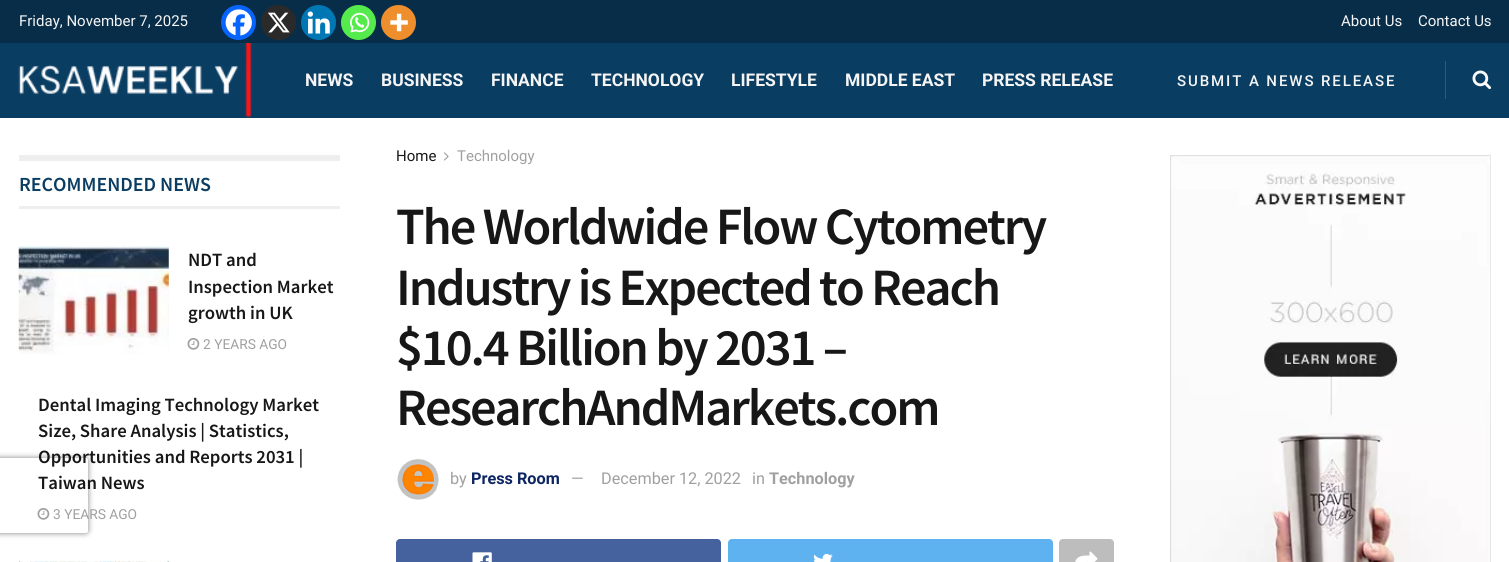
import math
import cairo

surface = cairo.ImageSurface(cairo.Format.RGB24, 1509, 562)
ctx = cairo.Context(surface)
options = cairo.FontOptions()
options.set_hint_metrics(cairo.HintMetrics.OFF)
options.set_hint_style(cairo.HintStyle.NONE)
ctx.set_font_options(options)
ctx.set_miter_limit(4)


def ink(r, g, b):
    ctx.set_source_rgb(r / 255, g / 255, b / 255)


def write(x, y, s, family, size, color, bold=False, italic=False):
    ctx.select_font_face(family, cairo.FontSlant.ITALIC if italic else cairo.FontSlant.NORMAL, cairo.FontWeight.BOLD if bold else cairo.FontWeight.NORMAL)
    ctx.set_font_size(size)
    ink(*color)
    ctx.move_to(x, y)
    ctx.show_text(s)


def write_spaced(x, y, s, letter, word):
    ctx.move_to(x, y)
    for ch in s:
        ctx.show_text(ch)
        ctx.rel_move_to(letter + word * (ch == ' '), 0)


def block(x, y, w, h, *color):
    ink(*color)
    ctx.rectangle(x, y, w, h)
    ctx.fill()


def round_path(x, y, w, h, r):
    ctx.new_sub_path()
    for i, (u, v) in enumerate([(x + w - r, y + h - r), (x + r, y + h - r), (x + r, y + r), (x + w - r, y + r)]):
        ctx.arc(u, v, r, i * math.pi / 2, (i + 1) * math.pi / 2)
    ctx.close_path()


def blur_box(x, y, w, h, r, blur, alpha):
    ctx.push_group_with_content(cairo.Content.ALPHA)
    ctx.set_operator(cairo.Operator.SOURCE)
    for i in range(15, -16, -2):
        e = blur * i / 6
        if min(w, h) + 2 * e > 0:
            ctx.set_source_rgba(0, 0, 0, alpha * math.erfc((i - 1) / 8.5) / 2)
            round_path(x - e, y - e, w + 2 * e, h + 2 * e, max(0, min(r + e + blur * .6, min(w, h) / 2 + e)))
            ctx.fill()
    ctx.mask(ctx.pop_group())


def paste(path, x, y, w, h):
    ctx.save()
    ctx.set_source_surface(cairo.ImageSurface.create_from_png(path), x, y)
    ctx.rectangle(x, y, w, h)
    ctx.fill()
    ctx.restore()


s1 = dict(family="Roboto", size=15, color=(245, 245, 245))
s2 = dict(family="Roboto", size=17.5, color=(245, 245, 245), bold=True)
s3 = dict(family="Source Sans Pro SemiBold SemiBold", size=20, color=(10, 61, 97))
s4 = dict(family="Source Sans Pro SemiBold SemiBold", size=18.75, color=(23, 23, 23))
s5 = dict(family="Roboto", size=13.75, color=(160, 160, 160))
s6 = dict(family="Roboto", size=15, color=(23, 23, 23))
s7 = dict(family="Roboto", size=15, color=(160, 160, 160))
s8 = dict(family="Roboto", size=16.25, color=(160, 160, 160))
s9 = dict(family="Roboto", size=16.25, color=(12, 36, 97), bold=True)
s10 = dict(family="Roboto", size=16.25, color=(160, 160, 160), bold=True)

ink(255, 255, 255)
ctx.paint()
block(0, 0, 1509, 43, 8, 45, 72)
write(19, 26, "Friday, November 7, 2025", **s1)
ink(7, 101, 254)
ctx.new_path()
ctx.arc(238.5, 22.5, 17.5, 0, 2 * math.pi)
ctx.fill()
paste("pic1.png", 225, 9, 27, 27)
ink(42, 42, 42)
ctx.arc(278.5, 22.5, 17.5, 0, 2 * math.pi)
ctx.fill()
paste("pic2.png", 268, 12, 22, 21)
ink(0, 119, 181)
ctx.arc(318.5, 22.5, 17.5, 0, 2 * math.pi)
ctx.fill()
paste("pic3.png", 307, 11, 23, 23)
ink(85, 235, 76)
ctx.arc(358.5, 22.5, 17.5, 0, 2 * math.pi)
ctx.fill()
paste("pic4.png", 350, 12, 20, 21)
ink(238, 142, 45)
ctx.arc(398.5, 22.5, 17.5, 0, 2 * math.pi)
ctx.fill()
paste("pic5.png", 390, 13, 18, 19)
write(1341, 26, "About Us", **s1)
write(1418, 26, "Contact Us", **s1)
block(0, 43, 1509, 75, 10, 61, 98)
paste("pic6.png", 18, 43, 234, 75)
write(305, 86, "NEWS", **s2)
write(381, 86, "BUSINESS", **s2)
write(491, 86, "FINANCE", **s2)
write(591, 86, "TECHNOLOGY", **s2)
write(731, 86, "LIFESTYLE", **s2)
write(845, 86, "MIDDLE EAST", **s2)
write(982, 86, "PRESS RELEASE", **s2)
ctx.select_font_face("Roboto Medium")
ctx.set_font_size(15)
write_spaced(1177, 86, "SUBMIT A NEWS RELEASE", 1.9, 0)
block(1445, 61, 1, 38, 47, 90, 122)
paste("pic7.png", 1472, 70, 20, 20)
block(19, 155, 321, 6, 238, 238, 238)
block(19, 206, 321, 3, 238, 238, 238)
write(19, 191, "RECOMMENDED NEWS", **s3)
block(19, 246, 150, 108, 247, 247, 247)
paste("pic8.png", 18, 246, 151, 108)
write(188, 266, "NDT and", **s4)
write(188, 293, "Inspection Market", **s4)
write(188, 319, "growth in UK", **s4)
paste("pic9.png", 187, 338, 13, 12)
write(203, 349, "2 YEARS AGO", **s5)
write(38, 411, "Dental Imaging Technology Market", **s4)
write(38, 437, "Size, Share Analysis | Statistics,", **s4)
ctx.save()
ctx.set_fill_rule(cairo.FillRule.EVEN_ODD)
ctx.new_path()
ctx.move_to(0, 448)
ctx.line_to(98, 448)
ctx.line_to(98, 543)
ctx.line_to(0, 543)
ctx.close_path()
ctx.move_to(-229.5, 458)
ctx.line_to(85.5, 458)
ctx.curve_to(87, 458, 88, 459, 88, 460.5)
ctx.line_to(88, 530.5)
ctx.curve_to(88, 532, 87, 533, 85.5, 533)
ctx.line_to(-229.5, 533)
ctx.curve_to(-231, 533, -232, 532, -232, 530.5)
ctx.line_to(-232, 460.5)
ctx.curve_to(-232, 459, -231, 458, -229.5, 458)
ctx.close_path()
ctx.clip()
ink(128, 128, 128)
blur_box(-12, 458, 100, 75, 2.5, 3, 1)
ctx.restore()
write(38, 463, "Opportunities and Reports 2031 |", **s4)
write(38, 489, "Taiwan News", **s4)
paste("pic9.png", 37, 508, 13, 12)
write(53, 519, "3 YEARS AGO", **s5)
paste("pic10.png", 19, 561, 150, 1)
write(396, 161, "Home", **s6)
paste("pic11.png", 444, 152, 5, 9)
write(457, 161, "Technology", **s7)
ctx.select_font_face("Source Sans Pro SemiBold SemiBold")
ctx.set_font_size(52.5)
ink(23, 23, 23)
write_spaced(396, 244, "The Worldwide Flow Cytometry", -2.1, 0)
write_spaced(396, 305, "Industry is Expected to Reach", -2.1, 0)
write_spaced(396, 365, "$10.4 Billion by 2031 –", -2.1, 0)
write_spaced(396, 425, "ResearchAndMarkets.com", -2.1, 0)
paste("pic12.png", 397, 459, 42, 41)
write(450, 484, "by", **s8)
write(471, 484, "Press Room", **s9)
write(571, 484, "—", **s8)
write(601, 484, "December 12, 2022", **s8)
write(752, 484, "in", **s8)
write(769, 484, "Technology", **s10)
ink(69, 98, 159)
round_path(396, 539, 325, 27, 4)
ctx.fill()
paste("pic13.png", 472, 552, 20, 10)
ink(94, 178, 239)
round_path(728, 539, 325, 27, 4)
ctx.fill()
paste("pic14.png", 813, 553, 20, 9)
ink(189, 189, 189)
round_path(1059, 539, 55, 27, 4)
ctx.fill()
paste("pic15.png", 1075, 551, 23, 11)
paste("pic16.png", 1170, 155, 321, 407)
surface.write_to_png("screenshot.png")
